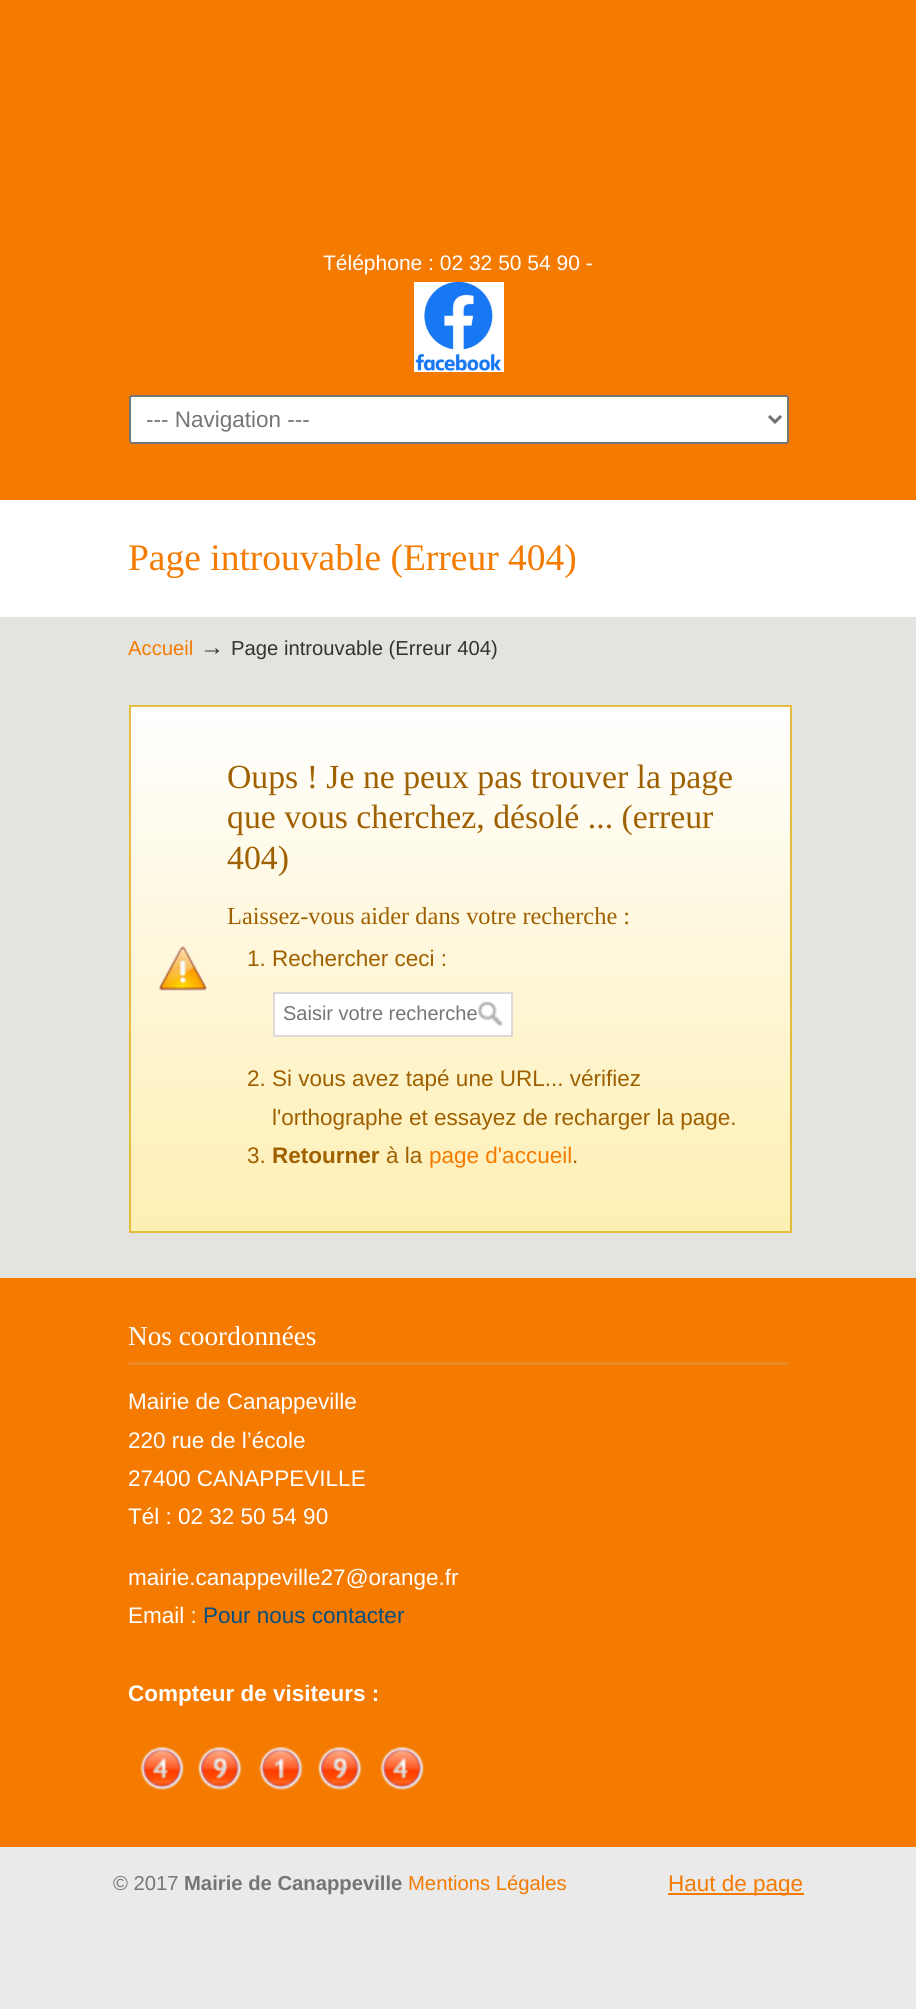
import math
import cairo

surface = cairo.ImageSurface(cairo.Format.RGB24, 916, 2009)
ctx = cairo.Context(surface)
options = cairo.FontOptions()
options.set_hint_metrics(cairo.HintMetrics.OFF)
options.set_hint_style(cairo.HintStyle.NONE)
ctx.set_font_options(options)
ctx.set_miter_limit(4)


def ink(r, g, b):
    ctx.set_source_rgb(r / 255, g / 255, b / 255)


def write(x, y, s, family, size, color, bold=False, italic=False):
    ctx.select_font_face(family, cairo.FontSlant.ITALIC if italic else cairo.FontSlant.NORMAL, cairo.FontWeight.BOLD if bold else cairo.FontWeight.NORMAL)
    ctx.set_font_size(size)
    ink(*color)
    ctx.move_to(x, y)
    ctx.show_text(s)


def block(x, y, w, h, *color):
    ink(*color)
    ctx.rectangle(x, y, w, h)
    ctx.fill()


def round_path(x, y, w, h, r):
    ctx.new_sub_path()
    for i, (u, v) in enumerate([(x + w - r, y + h - r), (x + r, y + h - r), (x + r, y + r), (x + w - r, y + r)]):
        ctx.arc(u, v, r, i * math.pi / 2, (i + 1) * math.pi / 2)
    ctx.close_path()


def paste(path, x, y, w, h):
    ctx.save()
    ctx.set_source_surface(cairo.ImageSurface.create_from_png(path), x, y)
    ctx.rectangle(x, y, w, h)
    ctx.fill()
    ctx.restore()


s1 = dict(family="Liberation Sans", size=21, color=(255, 255, 255))
s2 = dict(family="Liberation Sans", size=22.5, color=(117, 117, 117))
s3 = dict(family="Liberation Serif", size=37.5, color=(245, 123, 0))
s4 = dict(family="Liberation Sans", size=20.25, color=(245, 123, 0))
s5 = dict(family="Liberation Sans", size=24, color=(51, 51, 51))
s6 = dict(family="Liberation Sans", size=20.25, color=(51, 51, 51))
s7 = dict(family="Liberation Serif", size=33.75, color=(159, 96, 0))
s8 = dict(family="Liberation Serif", size=24.4, color=(159, 96, 0))
s9 = dict(family="Liberation Sans", size=22.5, color=(159, 96, 0))
s10 = dict(family="Liberation Sans", size=20, color=(117, 117, 117))
s11 = dict(family="Liberation Sans", size=22.5, color=(159, 96, 0), bold=True)
s12 = dict(family="Liberation Sans", size=22.5, color=(245, 123, 0))
s13 = dict(family="Liberation Serif", size=27.25, color=(255, 255, 255))
s14 = dict(family="Liberation Sans", size=22.5, color=(255, 255, 255))
s15 = dict(family="Liberation Sans", size=22.5, color=(7, 78, 125))
s16 = dict(family="Liberation Sans", size=22.5, color=(255, 255, 255), bold=True)
s17 = dict(family="Liberation Sans", size=20.25, color=(117, 117, 117))
s18 = dict(family="Liberation Sans", size=20.25, color=(117, 117, 117), bold=True)

ink(234, 234, 234)
ctx.paint()
block(0, 0, 916, 500, 245, 123, 0)
write(323, 270, "Téléphone : 02 32 50 54 90 -", **s1)
paste("pic1.png", 414, 282, 90, 90)
round_path(130, 396, 658, 47, 2)
ctx.fill_preserve()
ink(118, 118, 118)
ctx.stroke()
ctx.new_path()
ctx.move_to(769, 416)
ctx.line_to(775, 422)
ctx.line_to(781, 416)
ink(113, 113, 113)
ctx.set_line_width(3)
ctx.stroke()
write(146, 427, "--- Navigation ---", **s2)
block(0, 500, 916, 117, 255, 255, 255)
write(128, 570, "Page introuvable (Erreur 404)", **s3)
block(0, 617, 916, 661, 227, 227, 223)
write(128, 655, "Accueil", **s4)
write(200, 655, "→", **s5)
write(231, 655, "Page introuvable (Erreur 404)", **s6)
gradient = cairo.LinearGradient(461, 707, 461, 1232)
gradient.add_color_stop_rgba(0, 1, 1, 1, 1)
gradient.add_color_stop_rgba(1, 0.996, 0.937, 0.702, 1)
ctx.set_source(gradient)
ctx.rectangle(131, 707, 659, 524)
ctx.fill()
ctx.rectangle(130, 706, 661, 526)
ink(229, 188, 59)
ctx.set_line_width(2)
ctx.stroke()
paste("pic2.png", 159, 946, 48, 45)
write(227, 788, "Oups ! Je ne peux pas trouver la page", **s7)
write(227, 828, "que vous cherchez, désolé ... (erreur", **s7)
write(227, 869, "404)", **s7)
write(227, 924, "Laissez-vous aider dans votre recherche :", **s8)
write(247, 966, "1. Rechercher ceci :", **s9)
ink(255, 255, 255)
ctx.rectangle(274, 993, 238, 43)
ctx.fill_preserve()
ink(221, 217, 217)
ctx.stroke()
write(283, 1020, "Saisir votre recherche", **s10)
paste("pic3.png", 478, 1001, 25, 25)
write(247, 1086, "2. Si vous avez tapé une URL... vérifiez", **s9)
write(272, 1125, "l'orthographe et essayez de recharger la page.", **s9)
write(247, 1163, "3.", **s9)
write(272, 1163, "Retourner", **s11)
write(386, 1163, "à la", **s9)
write(429, 1163, "page d'accueil", **s12)
write(572, 1163, ".", **s9)
block(0, 1278, 916, 569, 245, 123, 0)
block(129, 1362, 660, 3, 238, 138, 37)
write(128, 1345, "Nos coordonnées", **s13)
write(128, 1409, "Mairie de Canappeville", **s14)
write(128, 1448, "220 rue de l’école", **s14)
write(128, 1486, "27400 CANAPPEVILLE", **s14)
write(128, 1524, "Tél : 02 32 50 54 90", **s14)
write(128, 1585, "mairie.canappeville27@orange.fr", **s14)
write(128, 1623, "Email :", **s14)
write(203, 1623, "Pour nous contacter", **s15)
write(128, 1701, "Compteur de visiteurs :", **s16)
paste("pic4.png", 140, 1747, 284, 43)
write(113, 1890, "© 2017", **s17)
write(184, 1890, "Mairie de Canappeville", **s18)
write(408, 1890, "Mentions Légales", **s4)
block(668, 1893, 136, 2, 245, 123, 0)
write(668, 1891, "Haut de page", **s12)
surface.write_to_png("screenshot.png")
